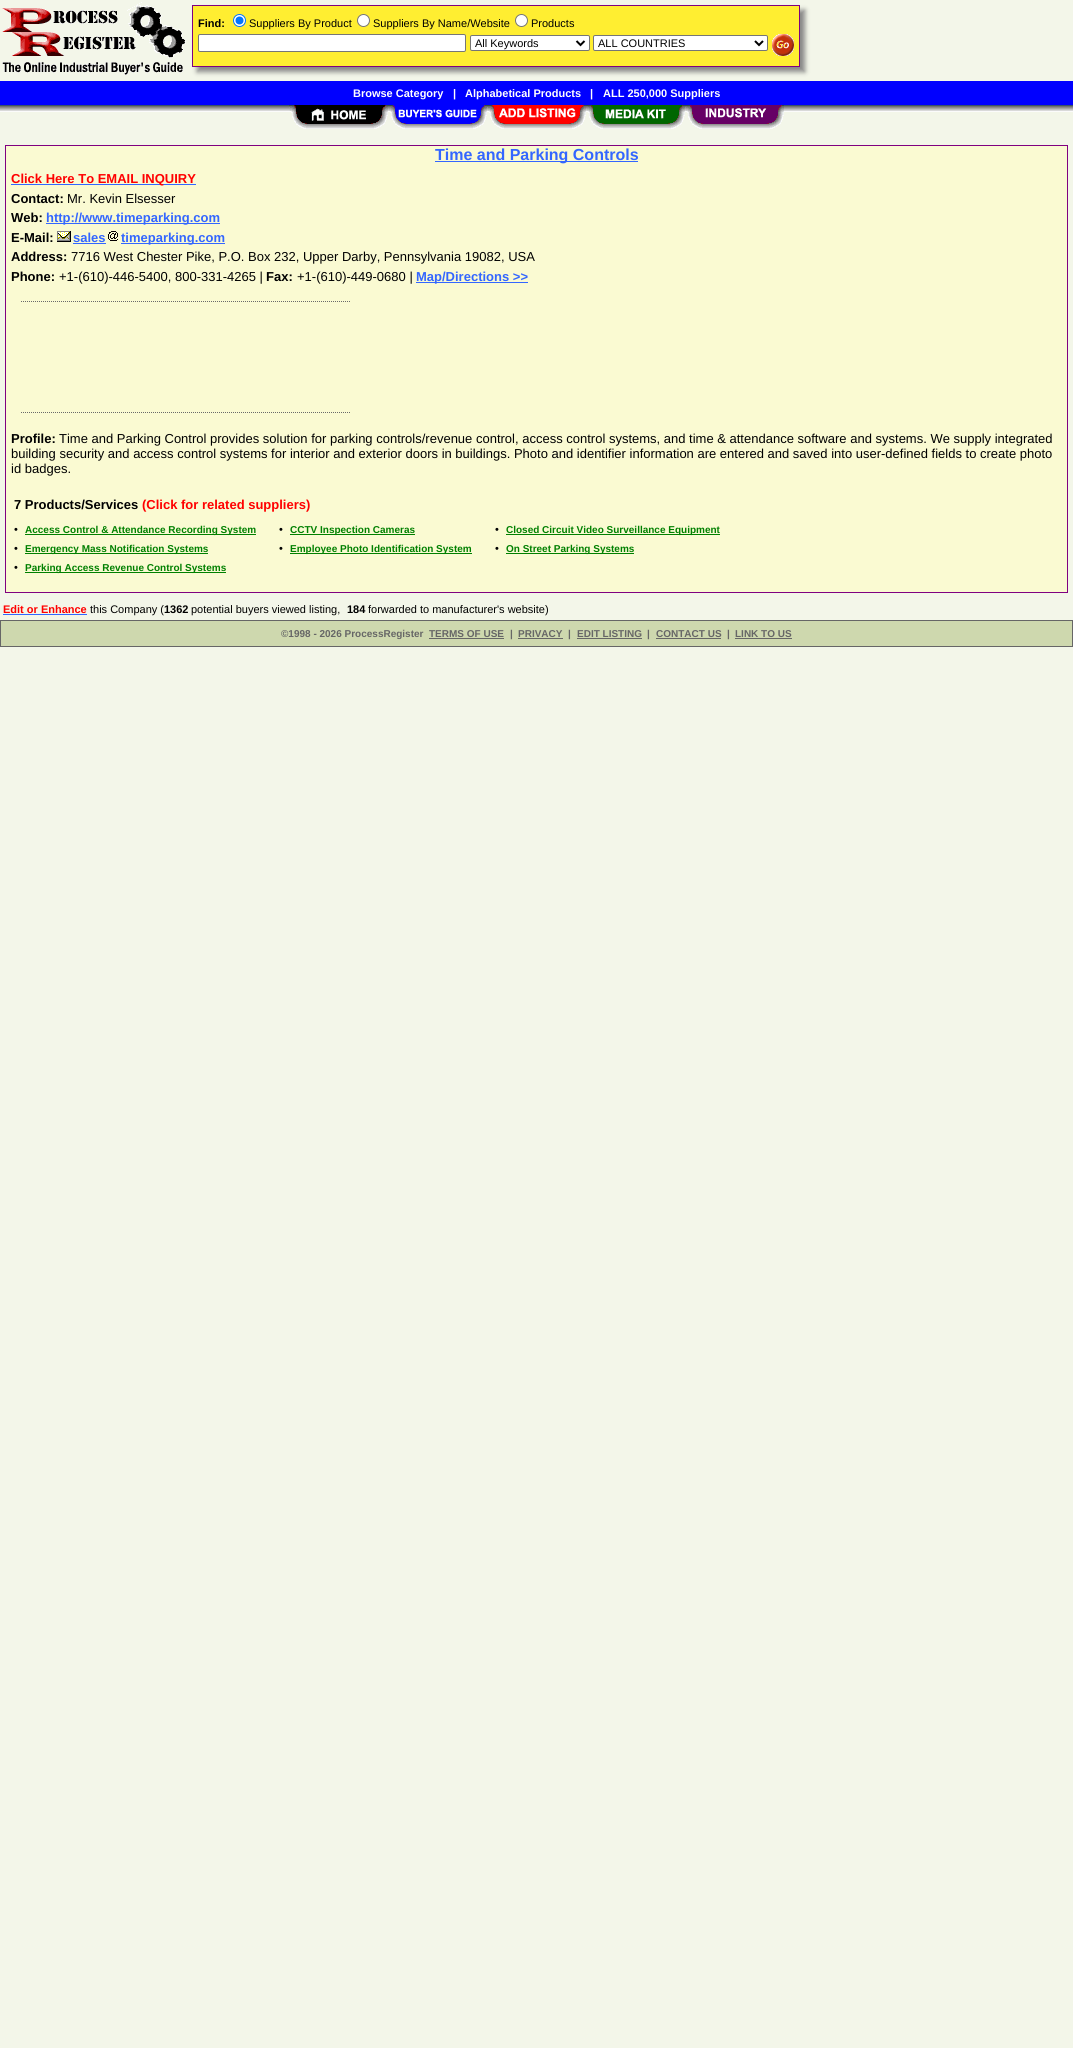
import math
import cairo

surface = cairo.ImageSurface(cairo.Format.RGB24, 1073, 2048)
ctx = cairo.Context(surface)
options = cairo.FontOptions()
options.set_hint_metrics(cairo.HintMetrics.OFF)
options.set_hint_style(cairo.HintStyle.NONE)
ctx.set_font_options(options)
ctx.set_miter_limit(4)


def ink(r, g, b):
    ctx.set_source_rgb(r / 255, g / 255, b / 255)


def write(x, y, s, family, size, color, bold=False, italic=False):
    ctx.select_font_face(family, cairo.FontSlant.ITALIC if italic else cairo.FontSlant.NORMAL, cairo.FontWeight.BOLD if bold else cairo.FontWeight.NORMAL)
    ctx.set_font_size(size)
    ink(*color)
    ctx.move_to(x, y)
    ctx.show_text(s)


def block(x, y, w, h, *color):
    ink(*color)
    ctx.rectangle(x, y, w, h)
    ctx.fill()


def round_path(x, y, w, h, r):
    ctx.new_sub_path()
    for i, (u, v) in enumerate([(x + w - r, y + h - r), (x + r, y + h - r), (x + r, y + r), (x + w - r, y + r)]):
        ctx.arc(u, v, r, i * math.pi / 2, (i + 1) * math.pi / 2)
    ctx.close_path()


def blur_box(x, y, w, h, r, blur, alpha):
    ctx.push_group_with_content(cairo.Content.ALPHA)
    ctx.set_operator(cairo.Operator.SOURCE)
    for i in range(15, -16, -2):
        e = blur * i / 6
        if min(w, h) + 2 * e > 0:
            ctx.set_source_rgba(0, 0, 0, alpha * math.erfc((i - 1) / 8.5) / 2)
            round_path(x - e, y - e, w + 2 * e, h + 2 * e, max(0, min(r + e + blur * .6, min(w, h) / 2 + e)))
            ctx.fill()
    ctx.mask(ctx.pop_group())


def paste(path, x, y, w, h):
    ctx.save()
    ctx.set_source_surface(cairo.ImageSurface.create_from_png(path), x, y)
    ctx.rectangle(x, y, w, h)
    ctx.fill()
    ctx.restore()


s1 = dict(family="Liberation Sans", size=11, color=(0, 0, 0), bold=True)
s2 = dict(family="Liberation Sans", size=11, color=(0, 0, 0))
s3 = dict(family="Liberation Sans", size=11, color=(255, 255, 255), bold=True)
s4 = dict(family="Liberation Sans", size=16, color=(51, 102, 255), bold=True)
s5 = dict(family="Liberation Sans", size=13, color=(255, 0, 0), bold=True)
s6 = dict(family="Liberation Sans", size=13, color=(0, 0, 0), bold=True)
s7 = dict(family="Liberation Sans", size=13, color=(0, 0, 0))
s8 = dict(family="Liberation Sans", size=13, color=(51, 102, 255), bold=True)
s9 = dict(family="Liberation Sans", size=10, color=(0, 128, 0), bold=True)
s10 = dict(family="Liberation Sans", size=11, color=(255, 0, 0), bold=True)
s11 = dict(family="Liberation Sans", size=10, color=(102, 102, 102), bold=True)

ink(243, 246, 233)
ctx.paint()
paste("pic1.png", 2, 2, 184, 73)
ink(136, 136, 136)
blur_box(197, 10, 608, 62, 0, 2.5, 1)
ink(255, 238, 49)
ctx.rectangle(192.5, 5.5, 607, 61)
ctx.fill_preserve()
ink(128, 0, 128)
ctx.set_line_width(1)
ctx.stroke()
write(198, 27, "Find:", **s1)
ink(255, 255, 255)
ctx.new_path()
ctx.arc(239.5, 20.5, 6, 0, 2 * math.pi)
ctx.fill_preserve()
ink(0, 117, 255)
ctx.stroke()
ctx.arc(239.5, 20.5, 4, 0, 2 * math.pi)
ctx.fill()
write(249, 27, "Suppliers By Product", **s2)
ink(255, 255, 255)
ctx.new_path()
ctx.arc(363.5, 20.5, 6, 0, 2 * math.pi)
ctx.fill_preserve()
ink(118, 118, 118)
ctx.stroke()
write(373, 27, "Suppliers By Name/Website", **s2)
ink(255, 255, 255)
ctx.new_path()
ctx.arc(521.5, 20.5, 6, 0, 2 * math.pi)
ctx.fill_preserve()
ink(118, 118, 118)
ctx.stroke()
write(531, 27, "Products", **s2)
ink(255, 255, 255)
round_path(198.5, 34.5, 267, 17, 1.5)
ctx.fill_preserve()
ink(118, 118, 118)
ctx.stroke()
ink(255, 255, 255)
round_path(470.5, 35.5, 119, 15, 1.5)
ctx.fill_preserve()
ink(118, 118, 118)
ctx.stroke()
ctx.new_path()
ctx.move_to(576.5, 41)
ctx.line_to(580.5, 45)
ctx.line_to(584.5, 41)
ink(0, 0, 0)
ctx.set_line_width(2)
ctx.stroke()
write(475, 47, "All Keywords", **s2)
ink(255, 255, 255)
round_path(593.5, 35.5, 174, 15, 1.5)
ctx.fill_preserve()
ink(118, 118, 118)
ctx.set_line_width(1)
ctx.stroke()
ctx.new_path()
ctx.move_to(755, 41)
ctx.line_to(759, 45)
ctx.line_to(763, 41)
ink(0, 0, 0)
ctx.set_line_width(2)
ctx.stroke()
write(598, 47, "ALL COUNTRIES", **s2)
paste("pic2.png", 772, 34, 22, 22)
block(0, 81, 1073, 24, 0, 0, 255)
write(353, 97, "Browse Category", **s3)
write(453, 97, "|", **s3)
write(465, 97, "Alphabetical Products", **s3)
write(590, 97, "|", **s3)
write(603, 97, "ALL 250,000 Suppliers", **s3)
paste("pic3.png", 0, 105, 1073, 7)
paste("pic4.png", 289, 105, 99, 24)
paste("pic5.png", 388, 105, 99, 24)
paste("pic6.png", 487, 105, 99, 24)
paste("pic7.png", 586, 105, 99, 24)
paste("pic8.png", 685, 105, 99, 24)
ink(250, 250, 210)
ctx.rectangle(5.5, 145.5, 1062, 447)
ctx.fill_preserve()
ink(128, 0, 128)
ctx.set_line_width(1)
ctx.stroke()
block(435, 161, 203, 1, 51, 102, 255)
write(435, 160, "Time and Parking Controls", **s4)
block(11, 184, 185, 1, 51, 102, 255)
write(11, 183, "Click Here To EMAIL INQUIRY", **s5)
write(11, 203, "Contact:", **s6)
write(67, 203, "Mr. Kevin Elsesser", **s7)
write(11, 222, "Web:", **s6)
block(46, 223, 174, 1, 51, 102, 255)
write(46, 222, "http://www.timeparking.com", **s8)
write(11, 242, "E-Mail:", **s6)
paste("pic9.png", 57, 231, 14, 11)
write(73, 242, "sales", **s8)
block(73, 243, 33, 1, 51, 102, 255)
paste("pic10.png", 108, 231, 10, 10)
block(121, 243, 104, 1, 51, 102, 255)
write(121, 242, "timeparking.com", **s8)
write(11, 261, "Address:", **s6)
write(71, 261, "7716 West Chester Pike, P.O. Box 232, Upper Darby, Pennsylvania 19082, USA", **s7)
write(11, 281, "Phone:", **s6)
write(59, 281, "+1-(610)-446-5400, 800-331-4265 |", **s7)
write(266, 281, "Fax:", **s6)
write(297, 281, "+1-(610)-449-0680 |", **s7)
block(416, 282, 112, 1, 51, 102, 255)
write(416, 281, "Map/Directions >>", **s8)
ctx.new_path()
ctx.move_to(21, 301.5)
ctx.line_to(351, 301.5)
ink(105, 105, 105)
ctx.set_dash([1, 1])
ctx.stroke()
ctx.new_path()
ctx.move_to(21, 412.5)
ctx.line_to(351, 412.5)
ctx.stroke()
write(11, 443, "Profile:", **s6)
write(59, 443, "Time and Parking Control provides solution for parking controls/revenue control, access control systems, and time & attendance software and systems. We supply integrated", **s7)
write(11, 458, "building security and access control systems for interior and exterior doors in buildings. Photo and identifier information are entered and saved into user-defined fields to create photo", **s7)
write(11, 473, "id badges.", **s7)
write(14, 509, "7 Products/Services", **s6)
write(142, 509, "(Click for related suppliers)", **s5)
write(14, 533, "•", **s2)
block(25, 534, 231, 1, 0, 128, 0)
write(25, 533, "Access Control & Attendance Recording System", **s9)
write(279, 533, "•", **s2)
block(290, 534, 125, 1, 0, 128, 0)
write(290, 533, "CCTV Inspection Cameras", **s9)
write(495, 533, "•", **s2)
block(506, 534, 214, 1, 0, 128, 0)
write(506, 533, "Closed Circuit Video Surveillance Equipment", **s9)
write(14, 552, "•", **s2)
block(25, 553, 183, 1, 0, 128, 0)
write(25, 552, "Emergency Mass Notification Systems", **s9)
write(279, 552, "•", **s2)
block(290, 553, 182, 1, 0, 128, 0)
write(290, 552, "Employee Photo Identification System", **s9)
write(495, 552, "•", **s2)
block(506, 553, 128, 1, 0, 128, 0)
write(506, 552, "On Street Parking Systems", **s9)
write(14, 571, "•", **s2)
block(25, 572, 201, 1, 0, 128, 0)
write(25, 571, "Parking Access Revenue Control Systems", **s9)
write(3, 613, "Edit or Enhance", **s10)
block(3, 614, 84, 1, 51, 102, 255)
write(90, 613, "this Company (", **s2)
write(164, 613, "1362", **s1)
write(191, 613, "potential buyers viewed listing,", **s2)
write(347, 613, "184", **s1)
write(368, 613, "forwarded to manufacturer's website)", **s2)
ink(206, 216, 174)
ctx.rectangle(0.5, 620.5, 1072, 26)
ctx.fill_preserve()
ink(102, 102, 102)
ctx.set_dash([])
ctx.stroke()
write(281, 637, "©1998 - 2026 ProcessRegister", **s11)
write(429, 637, "TERMS OF USE", **s11)
block(429, 638, 75, 1, 102, 102, 102)
write(510, 637, "|", **s11)
write(518, 637, "PRIVACY", **s11)
block(518, 638, 45, 1, 102, 102, 102)
write(568, 637, "|", **s11)
write(577, 637, "EDIT LISTING", **s11)
block(577, 638, 65, 1, 102, 102, 102)
write(647, 637, "|", **s11)
write(656, 637, "CONTACT US", **s11)
block(656, 638, 65, 1, 102, 102, 102)
write(727, 637, "|", **s11)
write(735, 637, "LINK TO US", **s11)
block(735, 638, 57, 1, 102, 102, 102)
surface.write_to_png("screenshot.png")
